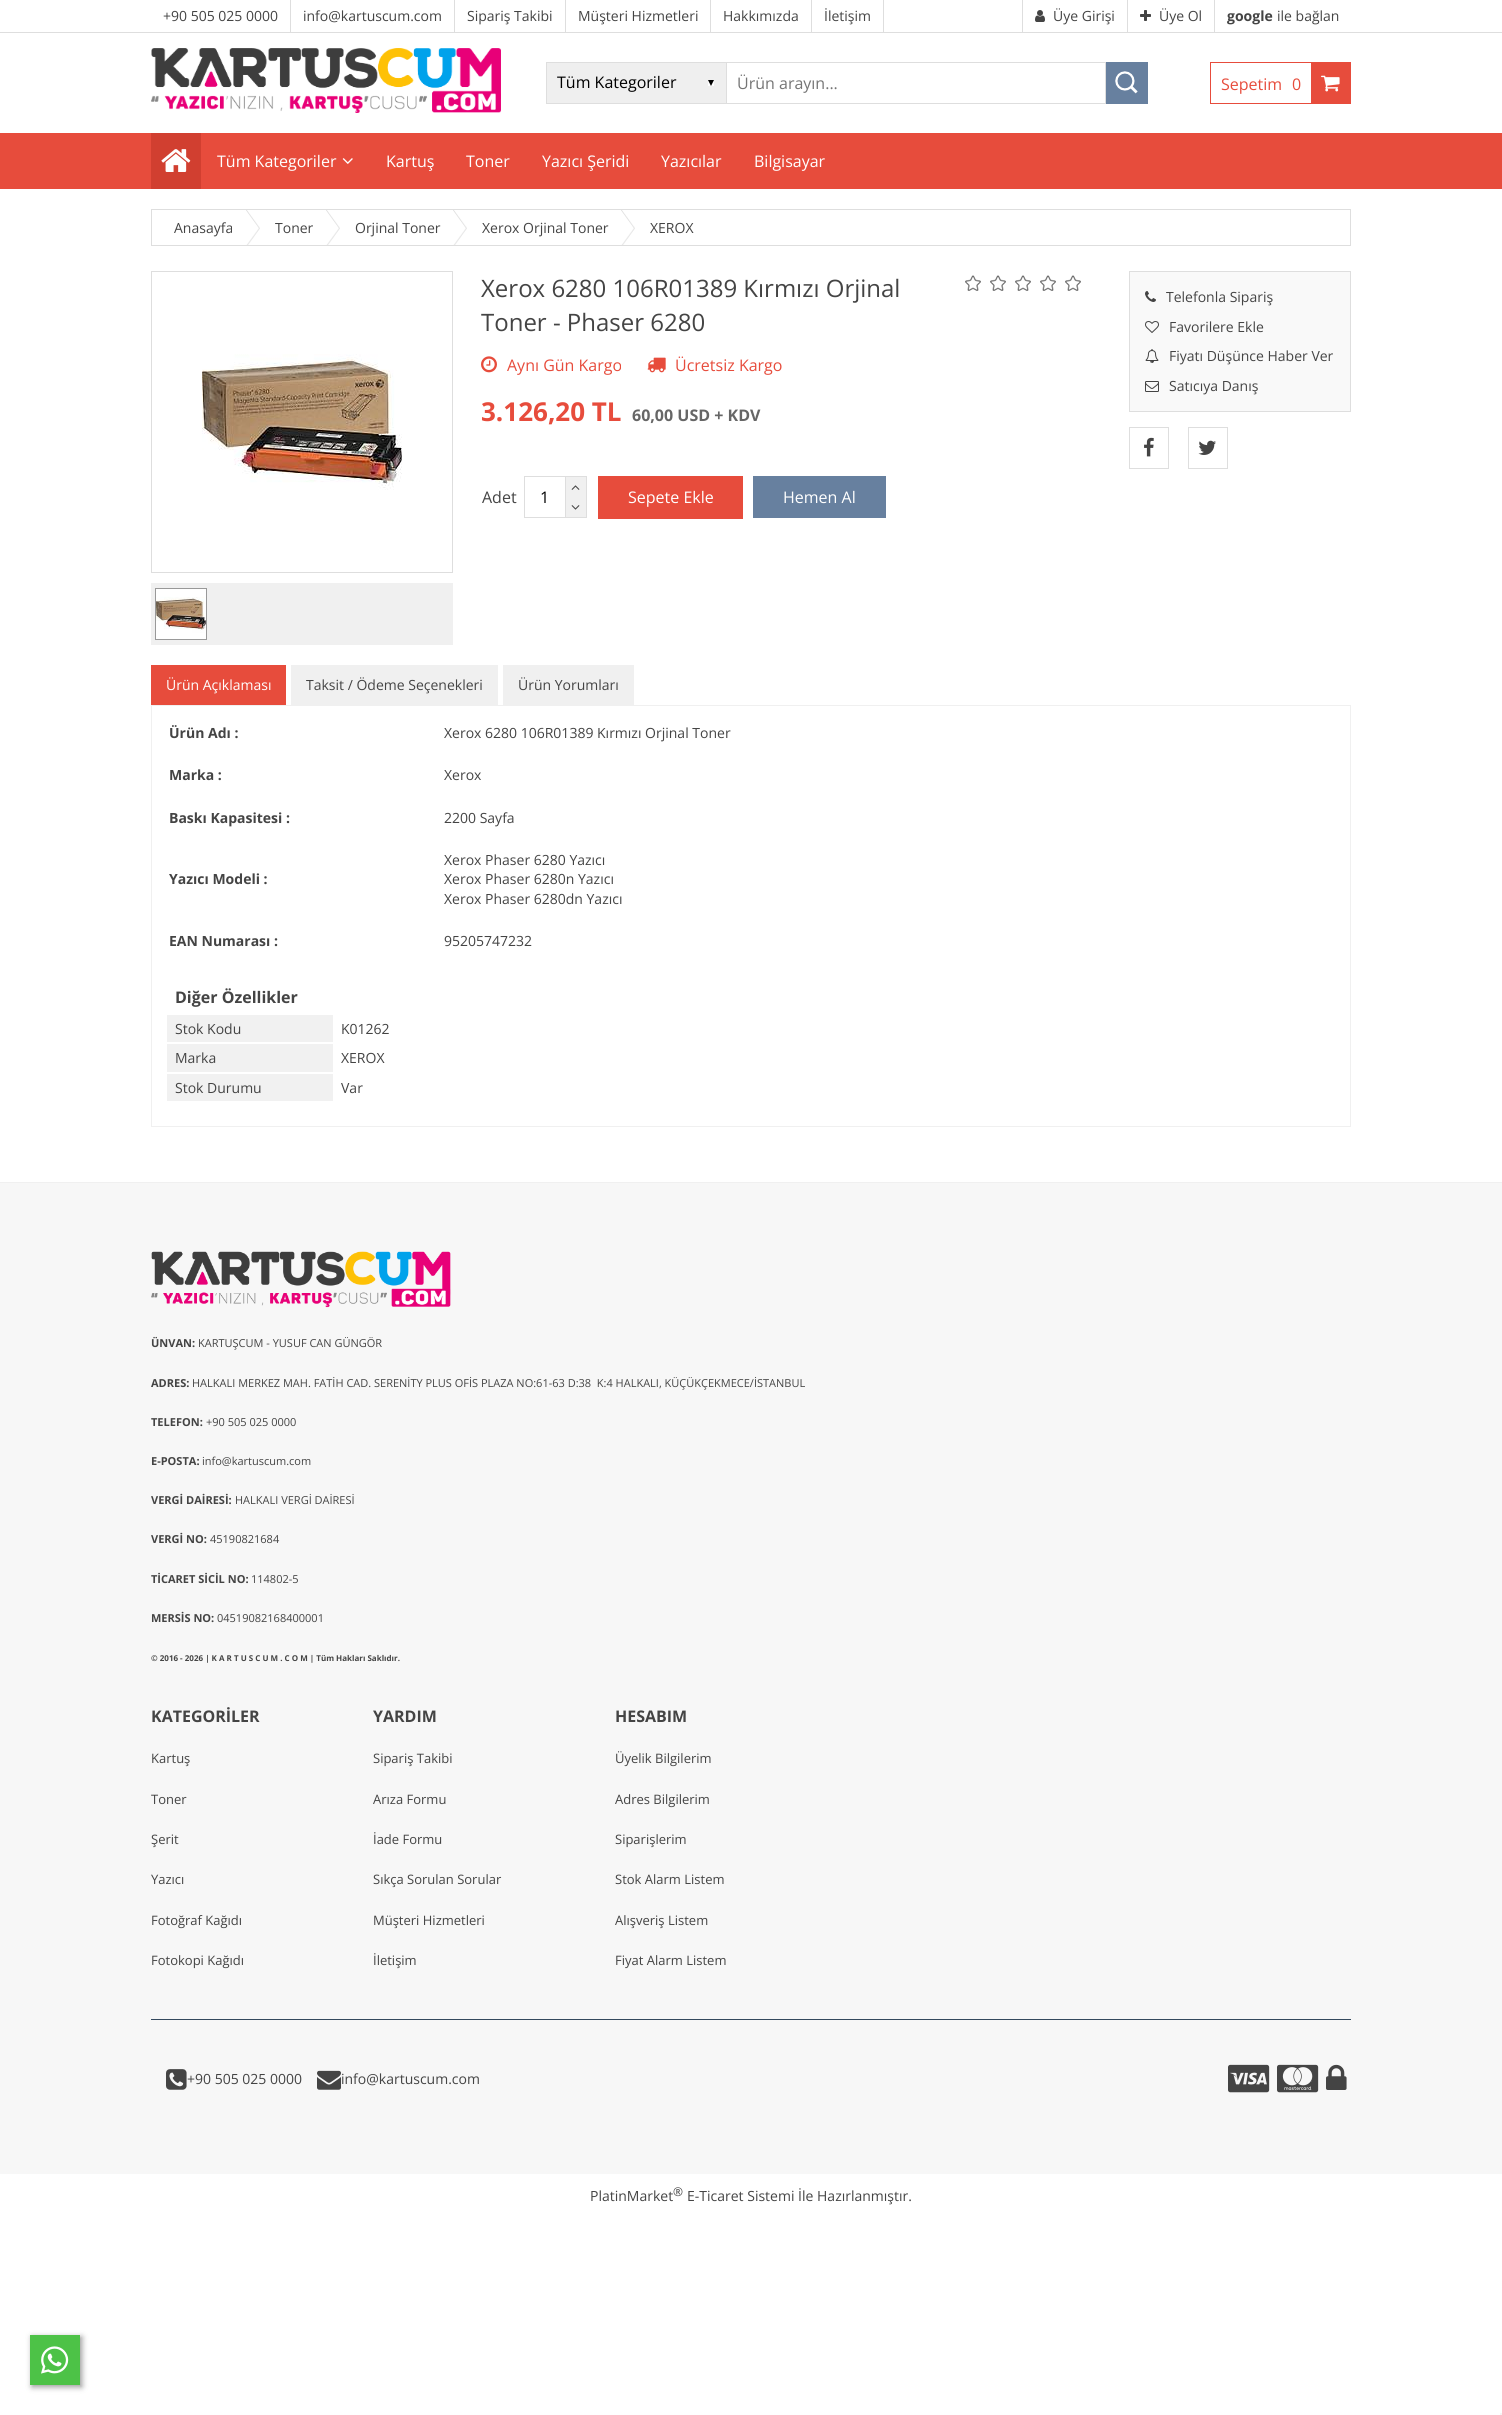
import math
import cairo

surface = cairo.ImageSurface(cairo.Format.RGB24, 1502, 2415)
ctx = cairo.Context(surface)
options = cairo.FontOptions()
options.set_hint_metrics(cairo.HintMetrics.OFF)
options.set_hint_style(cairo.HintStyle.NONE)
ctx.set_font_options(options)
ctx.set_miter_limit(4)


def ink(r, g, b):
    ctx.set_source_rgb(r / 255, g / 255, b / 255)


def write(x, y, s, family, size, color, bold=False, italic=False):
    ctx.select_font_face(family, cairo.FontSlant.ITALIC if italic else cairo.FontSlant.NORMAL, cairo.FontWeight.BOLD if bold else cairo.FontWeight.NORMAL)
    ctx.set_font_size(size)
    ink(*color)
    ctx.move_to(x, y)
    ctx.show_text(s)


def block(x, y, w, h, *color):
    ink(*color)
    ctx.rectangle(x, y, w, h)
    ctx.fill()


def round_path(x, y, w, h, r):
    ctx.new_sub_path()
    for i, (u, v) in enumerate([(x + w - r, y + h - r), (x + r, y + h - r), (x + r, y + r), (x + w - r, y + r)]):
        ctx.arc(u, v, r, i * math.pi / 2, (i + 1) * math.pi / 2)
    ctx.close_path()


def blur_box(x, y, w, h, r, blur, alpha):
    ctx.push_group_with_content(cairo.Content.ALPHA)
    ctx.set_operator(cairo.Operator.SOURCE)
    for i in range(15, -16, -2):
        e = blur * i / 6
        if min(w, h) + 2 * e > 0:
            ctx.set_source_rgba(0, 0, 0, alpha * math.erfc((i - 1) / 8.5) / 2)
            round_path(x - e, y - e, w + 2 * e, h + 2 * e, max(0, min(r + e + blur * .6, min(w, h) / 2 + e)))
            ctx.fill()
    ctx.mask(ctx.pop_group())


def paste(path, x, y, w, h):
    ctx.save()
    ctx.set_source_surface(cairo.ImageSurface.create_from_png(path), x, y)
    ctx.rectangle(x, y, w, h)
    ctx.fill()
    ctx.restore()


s1 = dict(family="Open Sans", size=14, color=(68, 68, 68))
s2 = dict(family="Open Sans", size=14, color=(68, 68, 68), bold=True)
s3 = dict(family="Open Sans", size=16, color=(0, 0, 0))
s4 = dict(family="Open Sans", size=16, color=(117, 117, 117))
s5 = dict(family="Open Sans", size=16, color=(231, 76, 60))
s6 = dict(family="Open Sans", size=16, color=(255, 255, 255))
s7 = dict(family="Open Sans", size=24, color=(68, 68, 68))
s8 = dict(family="Open Sans", size=26, color=(231, 76, 60), bold=True)
s9 = dict(family="Open Sans", size=16, color=(102, 102, 102), bold=True)
s10 = dict(family="Open Sans", size=16, color=(68, 68, 68))
s11 = dict(family="Open Sans", size=14, color=(255, 255, 255))
s12 = dict(family="Open Sans", size=16, color=(68, 68, 68), bold=True)
s13 = dict(family="Open Sans", size=11, color=(68, 68, 68), bold=True)
s14 = dict(family="Open Sans", size=11, color=(68, 68, 68))
s15 = dict(family="Open Sans", size=8, color=(68, 68, 68), bold=True)
s16 = dict(family="Open Sans", size=13, color=(68, 68, 68))
s17 = dict(family="Open Sans", size=12, color=(68, 68, 68))

ink(255, 255, 255)
ctx.paint()
block(0, 32, 1502, 1, 222, 222, 222)
block(290, 0, 1, 32, 222, 222, 222)
write(163, 21, "+90 505 025 0000", **s1)
block(454, 0, 1, 32, 222, 222, 222)
write(303, 21, "info@kartuscum.com", **s1)
block(565, 0, 1, 32, 222, 222, 222)
write(467, 21, "Sipariş Takibi", **s1)
block(710, 0, 1, 32, 222, 222, 222)
write(578, 21, "Müşteri Hizmetleri", **s1)
block(811, 0, 1, 32, 222, 222, 222)
write(723, 21, "Hakkımızda", **s1)
block(883, 0, 1, 32, 222, 222, 222)
write(824, 21, "İletişim", **s1)
block(1022, 0, 1, 32, 222, 222, 222)
paste("pic1.png", 1035, 10, 10, 12)
write(1053, 21, "Üye Girişi", **s1)
block(1127, 0, 1, 32, 222, 222, 222)
paste("pic2.png", 1140, 10, 11, 11)
write(1159, 21, "Üye Ol", **s1)
block(1214, 0, 1, 32, 222, 222, 222)
write(1227, 21, "google", **s2)
write(1277, 21, "ile bağlan", **s1)
paste("pic3.png", 151, 48, 350, 65)
block(547, 63, 179, 40, 239, 239, 239)
paste("pic4.png", 708, 80, 6, 6)
block(546, 62, 180, 1, 222, 222, 222)
block(546, 103, 180, 1, 222, 222, 222)
block(546, 62, 1, 42, 222, 222, 222)
write(557, 88, "Tüm Kategoriler", **s3)
ctx.rectangle(726.5, 62.5, 379, 41)
ink(222, 222, 222)
ctx.set_line_width(1)
ctx.stroke()
write(737, 89, "Ürün arayın...", **s4)
block(1106, 62, 42, 42, 103, 128, 159)
paste("pic5.png", 1115, 71, 23, 23)
ctx.rectangle(1210.5, 62.5, 140, 41)
ink(231, 76, 60)
ctx.stroke()
write(1221, 90, "Sepetim", **s5)
write(1292, 90, "0", **s5)
block(1311, 63, 39, 40, 231, 76, 60)
paste("pic6.png", 1321, 75, 19, 17)
block(0, 133, 1502, 56, 231, 76, 60)
block(151, 133, 50, 56, 209, 63, 48)
paste("pic7.png", 161, 149, 30, 23)
write(217, 167, "Tüm Kategoriler", **s6)
paste("pic8.png", 342, 158, 11, 6)
write(386, 167, "Kartuş", **s6)
write(466, 167, "Toner", **s6)
write(542, 167, "Yazıcı Şeridi", **s6)
write(661, 167, "Yazıcılar", **s6)
write(754, 167, "Bilgisayar", **s6)
ctx.rectangle(151.5, 209.5, 1199, 36)
ink(222, 222, 222)
ctx.stroke()
write(174, 233, "Anasayfa", **s1)
paste("pic9.png", 246, 210, 14, 35)
write(275, 233, "Toner", **s1)
paste("pic9.png", 326, 210, 14, 35)
write(355, 233, "Orjinal Toner", **s1)
paste("pic9.png", 453, 210, 14, 35)
write(482, 233, "Xerox Orjinal Toner", **s1)
paste("pic9.png", 621, 210, 14, 35)
write(650, 233, "XEROX", **s1)
ctx.rectangle(151.5, 271.5, 301, 301)
ink(222, 222, 222)
ctx.stroke()
paste("pic10.png", 202, 354, 200, 136)
block(151, 583, 302, 62, 240, 240, 240)
ctx.rectangle(155.5, 588.5, 51, 51)
ink(153, 153, 153)
ctx.stroke()
paste("pic11.png", 156, 589, 50, 50)
write(481, 297, "Xerox 6280 106R01389 Kırmızı Orjinal", **s7)
write(481, 331, "Toner - Phaser 6280", **s7)
paste("pic12.png", 965, 275, 116, 16)
ink(249, 249, 249)
ctx.rectangle(1129.5, 271.5, 221, 140)
ctx.fill_preserve()
ink(222, 222, 222)
ctx.stroke()
paste("pic13.png", 1145, 291, 11, 11)
write(1166, 302, "Telefonla Sipariş", **s1)
paste("pic14.png", 1145, 321, 14, 12)
write(1169, 332, "Favorilere Ekle", **s1)
paste("pic15.png", 1145, 349, 14, 14)
write(1169, 361, "Fiyatı Düşünce Haber Ver", **s1)
paste("pic16.png", 1145, 381, 14, 11)
write(1169, 391, "Satıcıya Danış", **s1)
paste("pic17.png", 481, 356, 16, 17)
write(507, 371, "Aynı Gün Kargo", **s5)
paste("pic18.png", 647, 357, 19, 16)
write(675, 371, "Ücretsiz Kargo", **s5)
write(481, 421, "3.126,20 TL", **s8)
write(632, 421, "60,00 USD + KDV", **s9)
write(482, 503, "Adet", **s10)
ctx.rectangle(524.5, 476.5, 41, 41)
ink(222, 222, 222)
ctx.stroke()
write(540, 503, "1", **s3)
block(566, 476, 21, 1, 222, 222, 222)
block(586, 476, 1, 42, 222, 222, 222)
block(566, 517, 21, 1, 222, 222, 222)
block(566, 477, 20, 40, 240, 240, 240)
paste("pic19.png", 571, 485, 9, 5)
paste("pic20.png", 571, 505, 9, 5)
block(598, 476, 145, 43, 231, 76, 60)
write(628, 503, "Sepete Ekle", **s6)
block(753, 476, 133, 42, 103, 128, 159)
write(783, 503, "Hemen Al", **s6)
ctx.rectangle(1129.5, 427.5, 39, 41)
ink(222, 222, 222)
ctx.stroke()
paste("pic21.png", 1144, 437, 10, 20)
ctx.rectangle(1188.5, 427.5, 39, 41)
ctx.stroke()
paste("pic22.png", 1198, 440, 18, 15)
block(151, 665, 135, 40, 231, 76, 60)
write(166, 690, "Ürün Açıklaması", **s11)
block(291, 665, 207, 40, 240, 240, 240)
write(306, 690, "Taksit / Ödeme Seçenekleri", **s1)
block(503, 665, 131, 40, 240, 240, 240)
write(518, 690, "Ürün Yorumları", **s1)
ctx.rectangle(151.5, 705.5, 1199, 421)
ink(240, 240, 240)
ctx.stroke()
write(169, 738, "Ürün Adı :", **s2)
write(444, 738, "Xerox 6280 106R01389 Kırmızı Orjinal Toner", **s1)
write(169, 780, "Marka :", **s2)
write(444, 780, "Xerox", **s1)
write(169, 823, "Baskı Kapasitesi :", **s2)
write(444, 823, "2200 Sayfa", **s1)
write(169, 884, "Yazıcı Modeli :", **s2)
write(444, 865, "Xerox Phaser 6280 Yazıcı", **s1)
write(444, 884, "Xerox Phaser 6280n Yazıcı", **s1)
write(444, 904, "Xerox Phaser 6280dn Yazıcı", **s1)
write(169, 946, "EAN Numarası :", **s2)
write(444, 946, "95205747232", **s1)
write(175, 1003, "Diğer Özellikler", **s12)
block(167, 1015, 166, 27, 241, 241, 241)
write(175, 1034, "Stok Kodu", **s1)
write(341, 1034, "K01262", **s1)
block(167, 1044, 166, 28, 241, 241, 241)
write(175, 1063, "Marka", **s1)
write(341, 1063, "XEROX", **s1)
block(167, 1074, 166, 27, 241, 241, 241)
write(175, 1093, "Stok Durumu", **s1)
write(341, 1093, "Var", **s1)
block(0, 1183, 1502, 991, 247, 247, 247)
block(0, 1182, 1502, 1, 240, 240, 240)
paste("pic23.png", 151, 1251, 300, 57)
write(151, 1347, "ÜNVAN:", **s13)
write(198, 1347, "KARTUŞCUM - YUSUF CAN GÜNGÖR", **s14)
write(151, 1387, "ADRES:", **s13)
write(192, 1387, "HALKALI MERKEZ MAH. FATİH CAD. SERENİTY PLUS OFİS PLAZA NO:61-63 D:38  K:4 HALKALI, KÜÇÜKÇEKMECE/İSTANBUL", **s14)
write(151, 1426, "TELEFON:", **s13)
write(206, 1426, "+90 505 025 0000", **s14)
write(151, 1465, "E-POSTA:", **s13)
write(202, 1465, "info@kartuscum.com", **s14)
write(151, 1504, "VERGİ DAİRESİ:", **s13)
write(235, 1504, "HALKALI VERGİ DAİRESİ", **s14)
write(151, 1543, "VERGİ NO:", **s13)
write(210, 1543, "45190821684", **s14)
write(151, 1583, "TİCARET SİCİL NO:", **s13)
write(251, 1583, "114802-5", **s14)
write(151, 1622, "MERSİS NO:", **s13)
write(217, 1622, "04519082168400001", **s14)
write(151, 1661, "© 2016 - 2026 | K A R T U S C U M . C O M | Tüm Hakları Saklıdır.", **s15)
write(151, 1722, "KATEGORİLER", **s12)
write(151, 1763, "Kartuş", **s16)
write(151, 1804, "Toner", **s16)
write(151, 1844, "Şerit", **s16)
write(151, 1884, "Yazıcı", **s16)
write(151, 1925, "Fotoğraf Kağıdı", **s16)
write(151, 1965, "Fotokopi Kağıdı", **s16)
write(373, 1722, "YARDIM", **s12)
write(373, 1763, "Sipariş Takibi", **s16)
write(373, 1804, "Arıza Formu", **s16)
write(373, 1844, "İade Formu", **s16)
write(373, 1884, "Sıkça Sorulan Sorular", **s16)
write(373, 1925, "Müşteri Hizmetleri", **s16)
write(373, 1965, "İletişim", **s16)
write(615, 1722, "HESABIM", **s12)
write(615, 1763, "Üyelik Bilgilerim", **s16)
write(615, 1804, "Adres Bilgilerim", **s16)
write(615, 1844, "Siparişlerim", **s16)
write(615, 1884, "Stok Alarm Listem", **s16)
write(615, 1925, "Alışveriş Listem", **s16)
write(615, 1965, "Fiyat Alarm Listem", **s16)
block(151, 2019, 1200, 1, 52, 73, 94)
paste("pic24.png", 166, 2069, 21, 21)
write(187, 2084, "+90 505 025 0000", **s1)
paste("pic25.png", 317, 2070, 24, 20)
write(341, 2084, "info@kartuscum.com", **s1)
paste("pic26.png", 1228, 2064, 42, 29)
paste("pic27.png", 1277, 2064, 42, 29)
paste("pic28.png", 1326, 2064, 21, 26)
write(590, 2201, "PlatinMarket", **s1)
write(673, 2196, "®", **s17)
write(687, 2201, "E-Ticaret Sistemi İle Hazırlanmıştır.", **s1)
ink(0, 0, 0)
blur_box(32, 2337, 50, 50, 0, 3, 0.4)
block(30, 2335, 50, 50, 77, 194, 71)
paste("pic29.png", 41, 2346, 28, 28)
block(1500, 2413, 2, 2, 245, 245, 245)
surface.write_to_png("screenshot.png")
